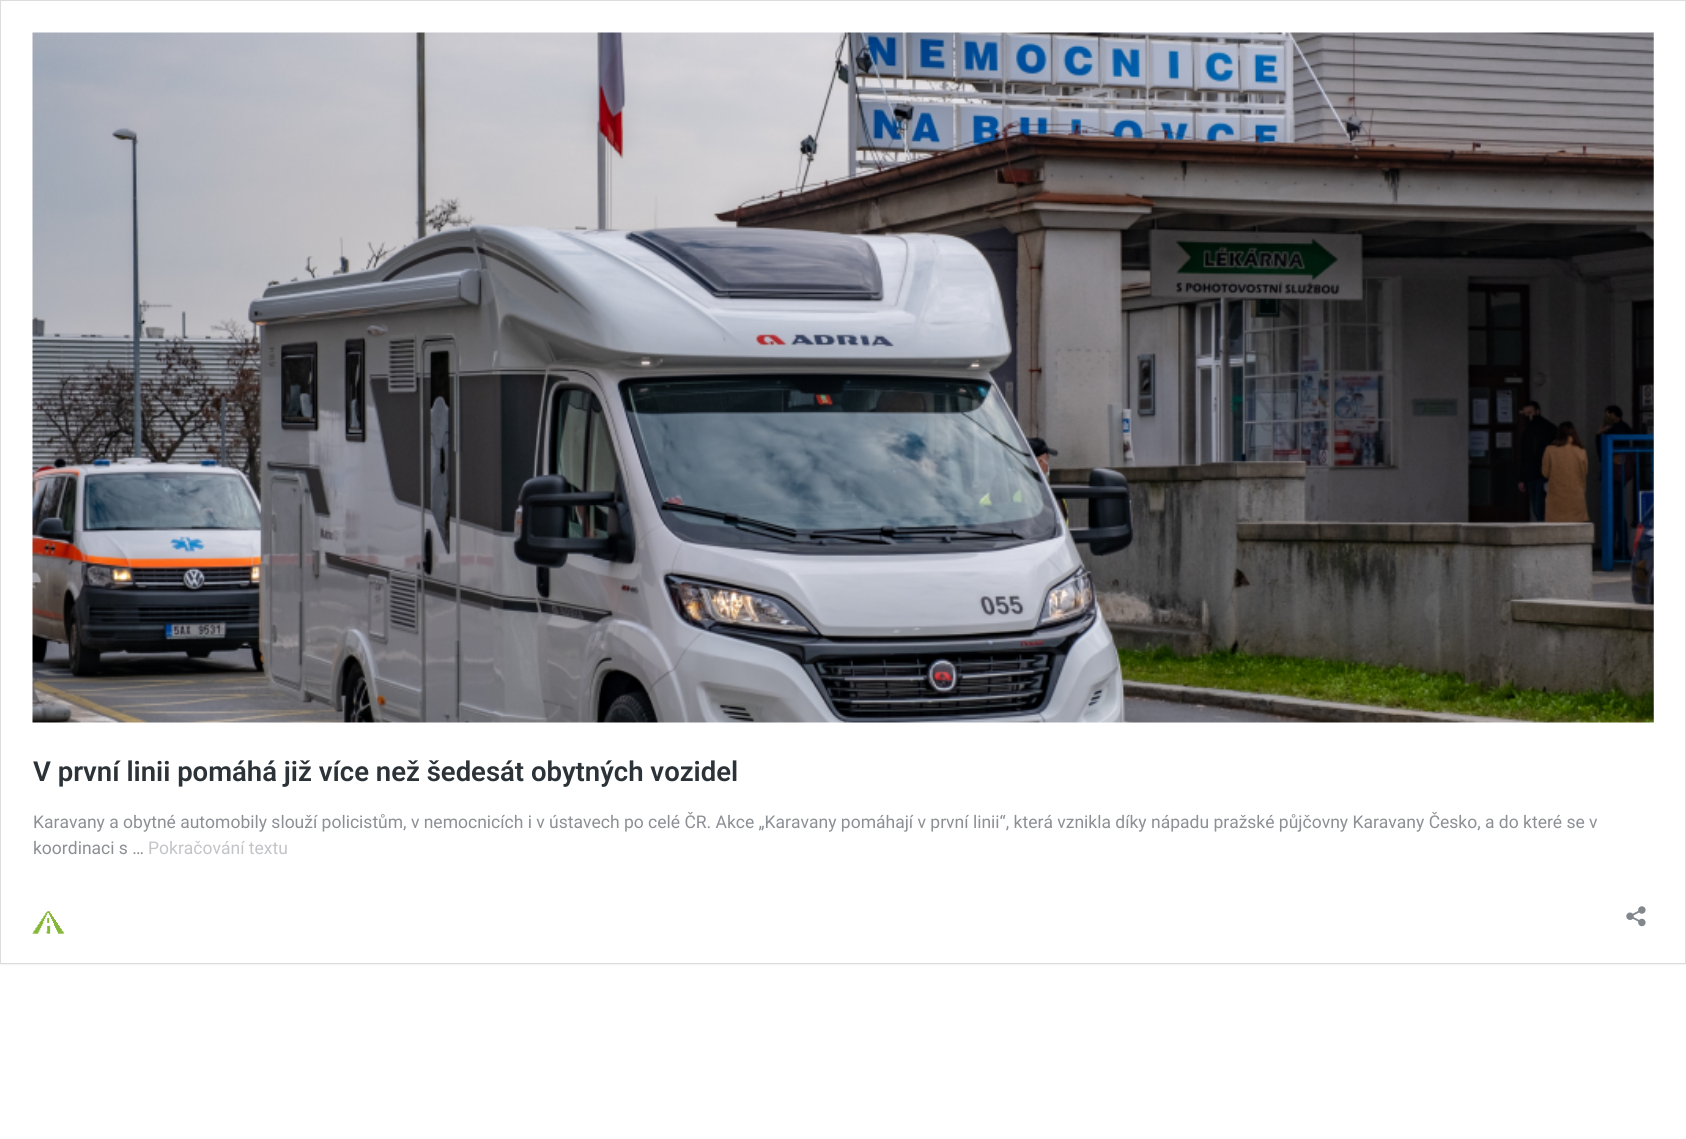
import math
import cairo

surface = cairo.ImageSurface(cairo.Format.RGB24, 1686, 1139)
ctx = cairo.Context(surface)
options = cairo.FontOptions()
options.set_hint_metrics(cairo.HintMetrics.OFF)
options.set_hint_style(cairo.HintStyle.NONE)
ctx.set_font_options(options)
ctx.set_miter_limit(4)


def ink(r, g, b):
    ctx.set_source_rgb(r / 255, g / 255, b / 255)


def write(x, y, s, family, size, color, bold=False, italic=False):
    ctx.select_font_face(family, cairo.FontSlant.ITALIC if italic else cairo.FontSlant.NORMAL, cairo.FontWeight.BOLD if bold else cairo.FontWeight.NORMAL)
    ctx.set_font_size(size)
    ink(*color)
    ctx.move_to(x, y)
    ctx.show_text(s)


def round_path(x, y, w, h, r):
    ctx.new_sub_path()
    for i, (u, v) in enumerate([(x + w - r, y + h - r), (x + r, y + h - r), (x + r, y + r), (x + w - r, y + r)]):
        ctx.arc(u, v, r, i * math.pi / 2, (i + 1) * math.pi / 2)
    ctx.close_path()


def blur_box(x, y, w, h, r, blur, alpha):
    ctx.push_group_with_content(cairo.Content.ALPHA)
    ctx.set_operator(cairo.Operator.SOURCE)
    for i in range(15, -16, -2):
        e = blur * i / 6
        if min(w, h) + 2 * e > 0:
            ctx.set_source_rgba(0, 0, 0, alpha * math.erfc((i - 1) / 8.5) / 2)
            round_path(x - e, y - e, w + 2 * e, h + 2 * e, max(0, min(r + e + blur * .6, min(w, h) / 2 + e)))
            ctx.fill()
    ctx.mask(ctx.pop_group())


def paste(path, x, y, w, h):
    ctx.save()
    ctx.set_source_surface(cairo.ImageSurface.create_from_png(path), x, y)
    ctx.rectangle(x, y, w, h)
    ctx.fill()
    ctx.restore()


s1 = dict(family="Roboto SemiBold", size=27.5, color=(44, 51, 56))
s2 = dict(family="Roboto", size=17.5, color=(140, 143, 148))
s3 = dict(family="Roboto", size=17.5, color=(195, 196, 199))

ink(255, 255, 255)
ctx.paint()
ink(0, 0, 0)
blur_box(0, 1, 1686, 964, 0, 0.5, 0.05)
ink(255, 255, 255)
ctx.rectangle(0.5, 0.5, 1685, 963)
ctx.fill_preserve()
ink(220, 220, 222)
ctx.set_line_width(1)
ctx.stroke()
paste("pic1.png", 32, 32, 1622, 691)
write(33, 781, "V první linii pomáhá již více než šedesát obytných vozidel", **s1)
write(33, 828, "Karavany a obytné automobily slouží policistům, v nemocnicích i v ústavech po celé ČR. Akce „Karavany pomáhají v první linii“, která vznikla díky nápadu pražské půjčovny Karavany Česko, a do které se v", **s2)
write(33, 854, "koordinaci s …", **s2)
write(148, 854, "Pokračování textu", **s3)
paste("pic2.png", 32, 911, 32, 23)
paste("pic3.png", 1626, 906, 20, 21)
surface.write_to_png("screenshot.png")
